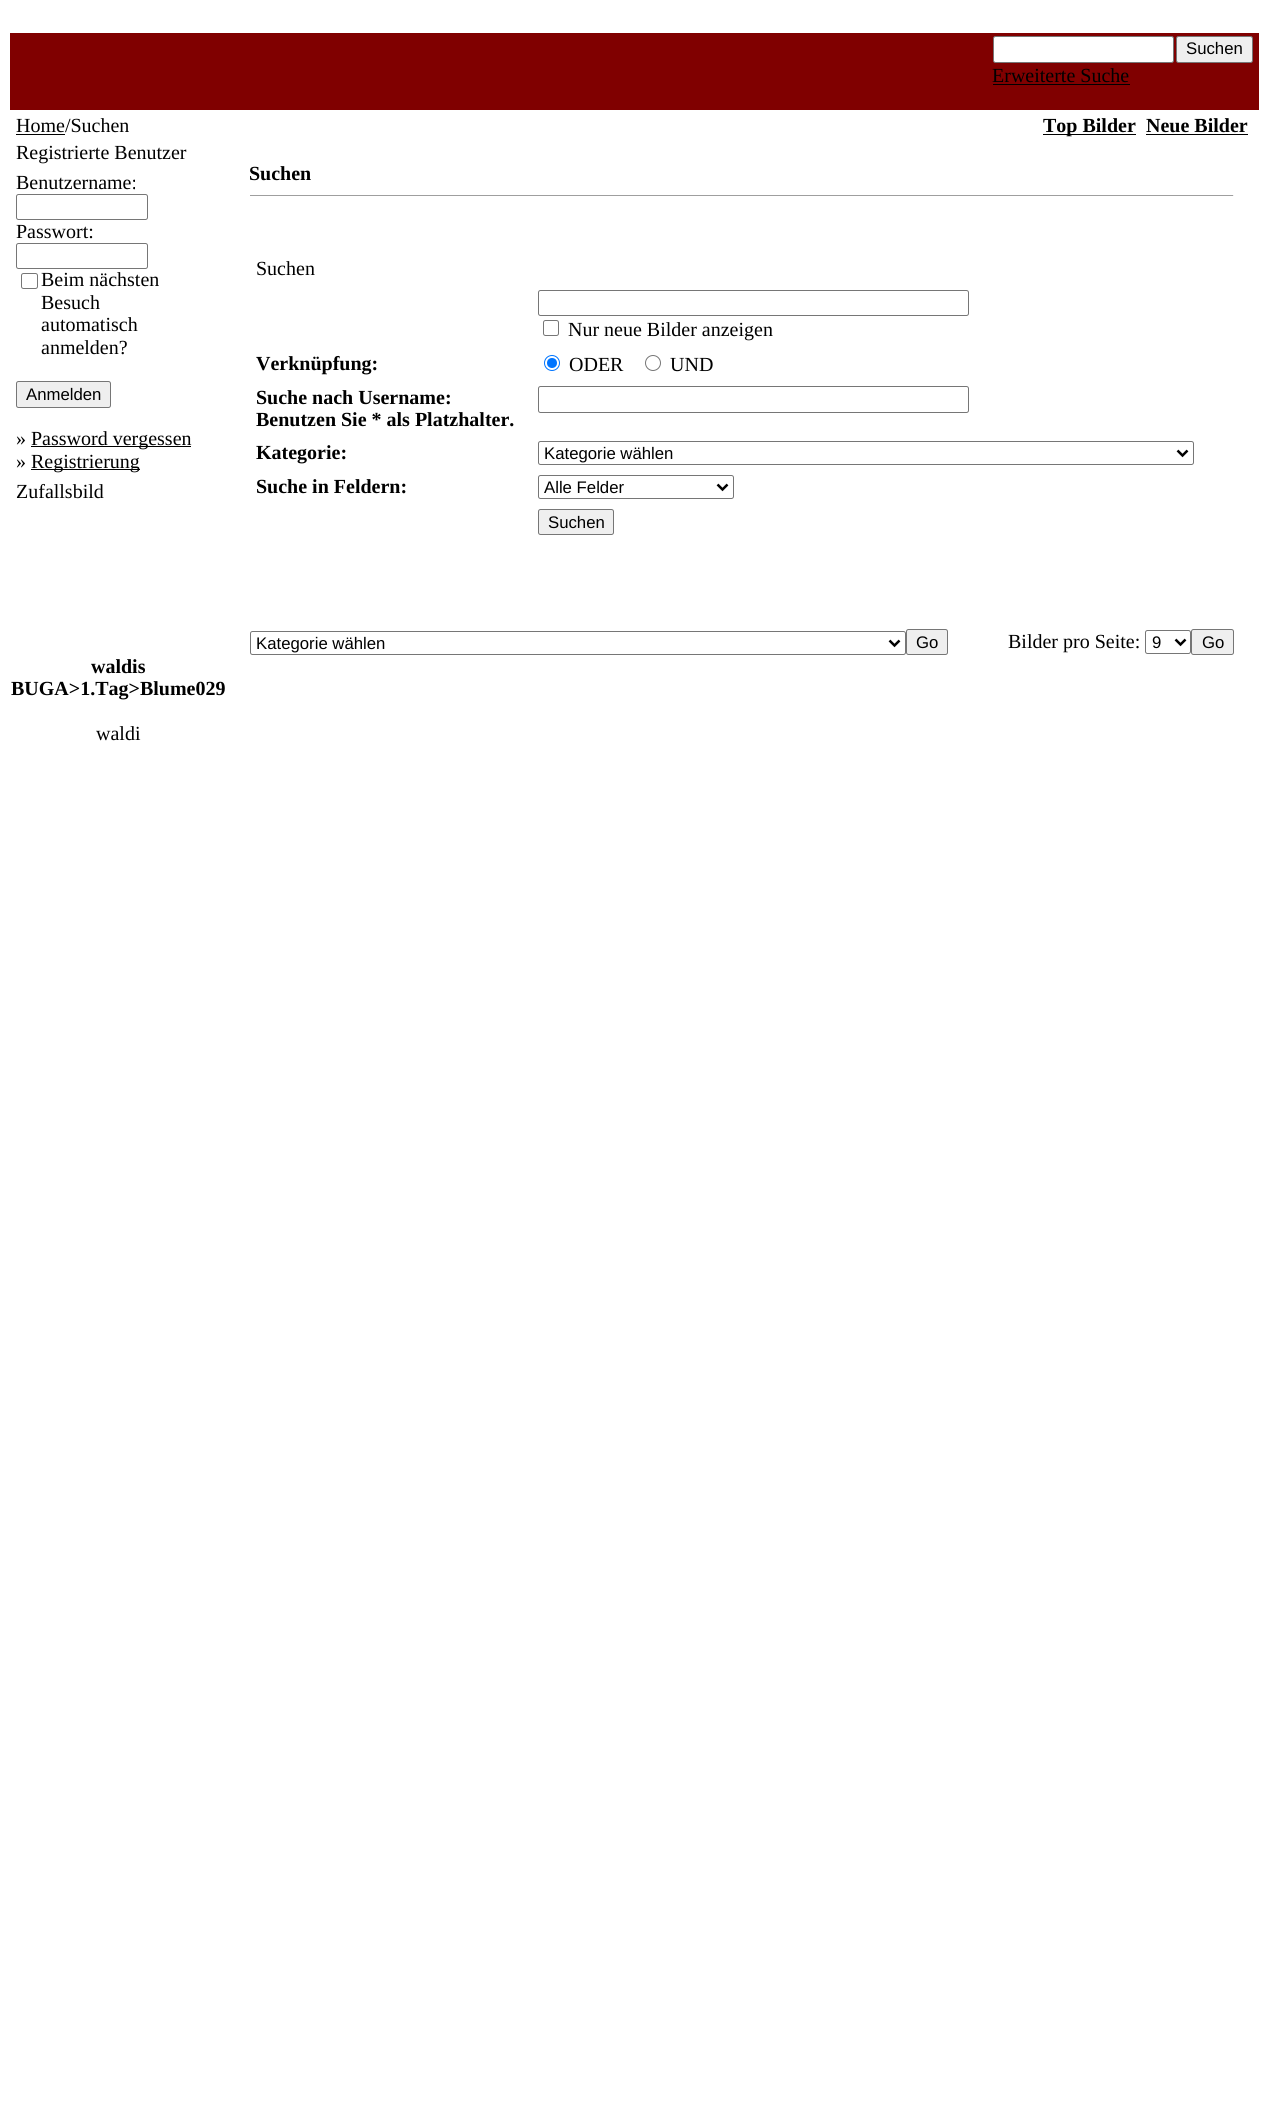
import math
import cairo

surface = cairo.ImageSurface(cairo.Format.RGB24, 1268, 2118)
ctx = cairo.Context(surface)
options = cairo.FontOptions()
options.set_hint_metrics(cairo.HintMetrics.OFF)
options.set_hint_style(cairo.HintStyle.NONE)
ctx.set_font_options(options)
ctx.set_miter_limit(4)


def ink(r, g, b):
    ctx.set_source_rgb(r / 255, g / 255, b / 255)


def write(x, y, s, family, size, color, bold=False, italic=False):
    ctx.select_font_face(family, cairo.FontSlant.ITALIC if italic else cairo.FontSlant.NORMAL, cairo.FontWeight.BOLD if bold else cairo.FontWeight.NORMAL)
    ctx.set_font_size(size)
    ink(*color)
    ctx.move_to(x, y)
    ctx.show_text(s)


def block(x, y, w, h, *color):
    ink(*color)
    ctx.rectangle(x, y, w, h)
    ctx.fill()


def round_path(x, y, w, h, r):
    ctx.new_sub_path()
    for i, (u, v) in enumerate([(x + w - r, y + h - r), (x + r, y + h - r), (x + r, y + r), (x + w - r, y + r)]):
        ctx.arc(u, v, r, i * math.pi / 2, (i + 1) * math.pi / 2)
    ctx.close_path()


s1 = dict(family="Liberation Sans", size=16.75, color=(0, 0, 0))
s2 = dict(family="Liberation Serif", size=20, color=(0, 0, 0))
s3 = dict(family="Liberation Serif", size=20, color=(0, 0, 0), bold=True)

ink(255, 255, 255)
ctx.paint()
block(10, 33, 1249, 77, 128, 0, 0)
ink(255, 255, 255)
round_path(993.5, 36.5, 180, 26, 2)
ctx.fill_preserve()
ink(118, 118, 118)
ctx.set_line_width(1)
ctx.stroke()
ink(239, 239, 239)
round_path(1176.5, 36.5, 76, 26, 2)
ctx.fill_preserve()
ink(118, 118, 118)
ctx.stroke()
write(1186, 54, "Suchen", **s1)
write(992, 82, "Erweiterte Suche", **s2)
block(993, 84, 137, 1, 0, 0, 0)
write(16, 132, "Home/Suchen", **s2)
block(16, 134, 49, 1, 0, 0, 0)
block(1043, 134, 93, 1, 0, 0, 0)
write(1043, 132, "Top Bilder", **s3)
write(1146, 132, "Neue Bilder", **s3)
block(1146, 134, 102, 1, 0, 0, 0)
write(16, 159, "Registrierte Benutzer", **s2)
write(16, 189, "Benutzername:", **s2)
round_path(16.5, 194.5, 131, 25, 2)
ink(118, 118, 118)
ctx.stroke()
write(16, 238, "Passwort:", **s2)
round_path(16.5, 243.5, 131, 25, 2)
ink(118, 118, 118)
ctx.stroke()
round_path(21.5, 273.5, 16, 15, 2)
ctx.stroke()
write(41, 286, "Beim nächsten", **s2)
write(41, 309, "Besuch", **s2)
write(41, 331, "automatisch", **s2)
write(41, 354, "anmelden?", **s2)
ink(239, 239, 239)
round_path(16.5, 381.5, 94, 26, 2)
ctx.fill_preserve()
ink(118, 118, 118)
ctx.stroke()
write(26, 400, "Anmelden", **s1)
write(16, 445, "»", **s2)
block(31, 446, 160, 1, 0, 0, 0)
write(31, 445, "Password vergessen", **s2)
write(16, 468, "»", **s2)
block(31, 469, 109, 1, 0, 0, 0)
write(31, 468, "Registrierung", **s2)
write(16, 498, "Zufallsbild", **s2)
write(91, 673, "waldis", **s3)
write(11, 695, "BUGA>1.Tag>Blume029", **s3)
write(96, 740, "waldi", **s2)
write(249, 180, "Suchen", **s3)
block(250, 195, 984, 1, 159, 159, 159)
block(1233, 195, 1, 1, 238, 238, 238)
write(256, 275, "Suchen", **s2)
round_path(538.5, 290.5, 430, 25, 2)
ink(118, 118, 118)
ctx.stroke()
round_path(543.5, 320.5, 15, 15, 2)
ctx.stroke()
write(568, 336, "Nur neue Bilder anzeigen", **s2)
write(256, 370, "Verknüpfung:", **s3)
ctx.new_path()
ctx.arc(552, 363, 7.5, 0, 2 * math.pi)
ink(0, 117, 255)
ctx.stroke()
ctx.arc(552, 363, 5, 0, 2 * math.pi)
ctx.fill()
write(569, 371, "ODER", **s2)
ctx.new_path()
ctx.arc(653, 363, 7.5, 0, 2 * math.pi)
ink(118, 118, 118)
ctx.stroke()
write(670, 371, "UND", **s2)
write(256, 404, "Suche nach Username:", **s3)
write(256, 426, "Benutzen Sie * als Platzhalter.", **s3)
round_path(538.5, 386.5, 430, 26, 2)
ink(118, 118, 118)
ctx.stroke()
write(256, 459, "Kategorie:", **s3)
round_path(538.5, 441.5, 655, 23, 2)
ink(118, 118, 118)
ctx.stroke()
ctx.new_path()
ctx.move_to(1177.5, 450.5)
ctx.line_to(1182.5, 455.5)
ctx.line_to(1187.5, 450.5)
ink(0, 0, 0)
ctx.set_line_width(2.5)
ctx.stroke()
write(544, 459, "Kategorie wählen", **s1)
write(256, 493, "Suche in Feldern:", **s3)
round_path(538.5, 475.5, 195, 23, 2)
ink(118, 118, 118)
ctx.set_line_width(1)
ctx.stroke()
ctx.new_path()
ctx.move_to(717.5, 484.5)
ctx.line_to(722.5, 489.5)
ctx.line_to(727.5, 484.5)
ink(0, 0, 0)
ctx.set_line_width(2.5)
ctx.stroke()
write(544, 493, "Alle Felder", **s1)
ink(239, 239, 239)
round_path(538.5, 509.5, 75, 25, 2)
ctx.fill_preserve()
ink(118, 118, 118)
ctx.set_line_width(1)
ctx.stroke()
write(548, 528, "Suchen", **s1)
round_path(250.5, 631.5, 655, 23, 2)
ink(118, 118, 118)
ctx.stroke()
ctx.new_path()
ctx.move_to(889.5, 640.5)
ctx.line_to(894.5, 645.5)
ctx.line_to(899.5, 640.5)
ink(0, 0, 0)
ctx.set_line_width(2.5)
ctx.stroke()
write(256, 649, "Kategorie wählen", **s1)
ink(239, 239, 239)
round_path(906.5, 629.5, 41, 25, 2)
ctx.fill_preserve()
ink(118, 118, 118)
ctx.set_line_width(1)
ctx.stroke()
write(916, 648, "Go", **s1)
write(1008, 648, "Bilder pro Seite:", **s2)
round_path(1145.5, 630.5, 45, 23, 2)
ink(118, 118, 118)
ctx.stroke()
ctx.new_path()
ctx.move_to(1175.5, 639.5)
ctx.line_to(1180.5, 644.5)
ctx.line_to(1185.5, 639.5)
ink(0, 0, 0)
ctx.set_line_width(2.5)
ctx.stroke()
write(1152, 648, "9", **s1)
ink(239, 239, 239)
round_path(1191.5, 629.5, 42, 25, 2)
ctx.fill_preserve()
ink(118, 118, 118)
ctx.set_line_width(1)
ctx.stroke()
write(1202, 648, "Go", **s1)
surface.write_to_png("screenshot.png")
